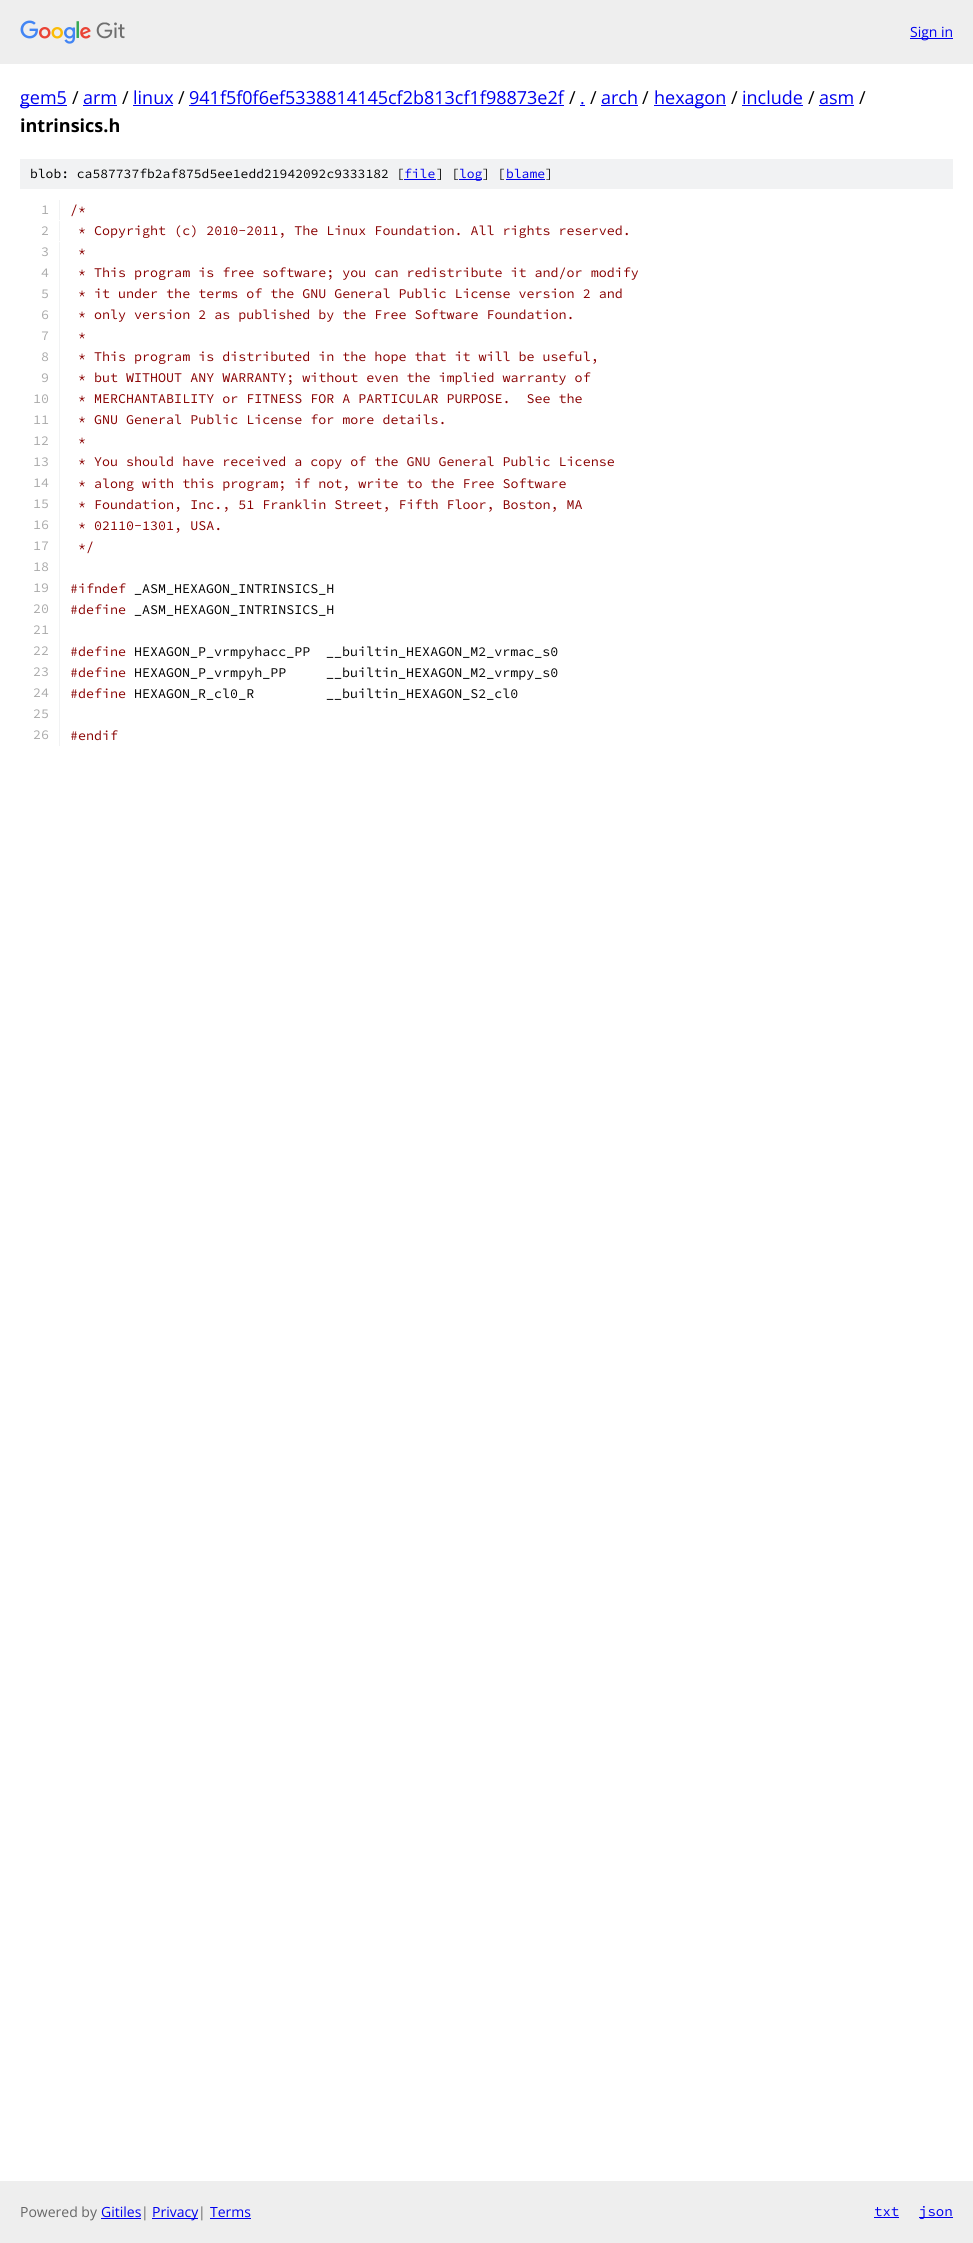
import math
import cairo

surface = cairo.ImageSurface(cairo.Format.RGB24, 973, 2243)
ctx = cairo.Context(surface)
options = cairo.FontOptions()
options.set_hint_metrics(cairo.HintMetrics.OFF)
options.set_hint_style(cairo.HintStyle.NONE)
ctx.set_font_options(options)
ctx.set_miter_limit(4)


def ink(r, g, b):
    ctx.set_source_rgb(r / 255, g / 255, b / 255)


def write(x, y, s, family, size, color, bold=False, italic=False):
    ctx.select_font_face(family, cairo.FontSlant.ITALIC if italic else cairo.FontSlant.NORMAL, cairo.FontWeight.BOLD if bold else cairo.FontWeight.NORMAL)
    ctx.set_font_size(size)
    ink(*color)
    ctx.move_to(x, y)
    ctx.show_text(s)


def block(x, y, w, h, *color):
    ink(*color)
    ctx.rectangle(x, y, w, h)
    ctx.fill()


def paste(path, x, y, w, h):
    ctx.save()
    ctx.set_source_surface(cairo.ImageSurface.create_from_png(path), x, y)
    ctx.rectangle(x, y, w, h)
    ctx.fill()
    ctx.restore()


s1 = dict(family="Open Sans", size=14, color=(0, 0, 238))
s2 = dict(family="Open Sans", size=18, color=(0, 0, 238))
s3 = dict(family="Open Sans", size=18, color=(0, 0, 0))
s4 = dict(family="Open Sans", size=18, color=(0, 0, 0), bold=True)
s5 = dict(family="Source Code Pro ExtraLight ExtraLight", size=13, color=(0, 0, 0))
s6 = dict(family="Source Code Pro ExtraLight ExtraLight", size=13, color=(0, 0, 238))
s7 = dict(family="Source Code Pro ExtraLight ExtraLight", size=13.35, color=(170, 170, 170))
s8 = dict(family="Source Code Pro ExtraLight ExtraLight", size=13.35, color=(136, 0, 0))
s9 = dict(family="Source Code Pro ExtraLight ExtraLight", size=13.35, color=(0, 0, 0))
s10 = dict(family="Open Sans", size=14, color=(102, 102, 102))
s11 = dict(family="Source Code Pro ExtraLight ExtraLight", size=14, color=(0, 0, 238))

ink(255, 255, 255)
ctx.paint()
block(0, 0, 973, 64, 238, 238, 238)
paste("pic1.png", 20, 20, 105, 24)
block(910, 38, 43, 1, 0, 0, 238)
write(910, 37, "Sign in", **s1)
block(20, 105, 47, 1, 0, 0, 238)
write(20, 104, "gem5", **s2)
write(72, 104, "/", **s3)
write(83, 104, "arm", **s2)
block(83, 105, 34, 1, 0, 0, 238)
write(122, 104, "/", **s3)
write(133, 104, "linux", **s2)
block(133, 105, 40, 1, 0, 0, 238)
write(178, 104, "/", **s3)
write(189, 104, "941f5f0f6ef5338814145cf2b813cf1f98873e2f", **s2)
block(189, 105, 375, 1, 0, 0, 238)
write(569, 104, "/", **s3)
write(580, 104, ".", **s2)
block(580, 105, 5, 1, 0, 0, 238)
write(590, 104, "/", **s3)
write(601, 104, "arch", **s2)
block(601, 105, 37, 1, 0, 0, 238)
write(642, 104, "/", **s3)
block(654, 105, 72, 1, 0, 0, 238)
write(654, 104, "hexagon", **s2)
write(731, 104, "/", **s3)
write(742, 104, "include", **s2)
block(742, 105, 61, 1, 0, 0, 238)
write(808, 104, "/", **s3)
write(819, 104, "asm", **s2)
block(819, 105, 35, 1, 0, 0, 238)
write(859, 104, "/", **s3)
write(20, 132, "intrinsics.h", **s4)
block(20, 159, 933, 30, 241, 242, 243)
write(30, 178, "blob: ca587737fb2af875d5ee1edd21942092c9333182 [", **s5)
write(404, 178, "file", **s6)
block(404, 179, 32, 1, 0, 0, 238)
write(436, 178, "] [", **s5)
block(459, 179, 23, 1, 0, 0, 238)
write(459, 178, "log", **s6)
write(482, 178, "] [", **s5)
write(506, 178, "blame", **s6)
block(506, 179, 39, 1, 0, 0, 238)
write(545, 178, "]", **s5)
block(59, 200, 1, 20, 241, 242, 243)
write(41, 214, "1", **s7)
write(70, 214, "/*", **s8)
block(59, 221, 1, 20, 241, 242, 243)
write(41, 235, "2", **s7)
write(78, 235, "* Copyright (c) 2010-2011, The Linux Foundation. All rights reserved.", **s8)
block(59, 242, 1, 504, 241, 242, 243)
write(41, 256, "3", **s7)
write(78, 256, "*", **s8)
write(41, 277, "4", **s7)
write(78, 277, "* This program is free software; you can redistribute it and/or modify", **s8)
write(41, 298, "5", **s7)
write(78, 298, "* it under the terms of the GNU General Public License version 2 and", **s8)
write(41, 319, "6", **s7)
write(78, 319, "* only version 2 as published by the Free Software Foundation.", **s8)
write(41, 340, "7", **s7)
write(78, 340, "*", **s8)
write(41, 361, "8", **s7)
write(78, 361, "* This program is distributed in the hope that it will be useful,", **s8)
write(41, 382, "9", **s7)
write(78, 382, "* but WITHOUT ANY WARRANTY; without even the implied warranty of", **s8)
write(33, 403, "10", **s7)
write(78, 403, "* MERCHANTABILITY or FITNESS FOR A PARTICULAR PURPOSE.  See the", **s8)
write(33, 424, "11", **s7)
write(78, 424, "* GNU General Public License for more details.", **s8)
write(33, 445, "12", **s7)
write(78, 445, "*", **s8)
write(33, 466, "13", **s7)
write(78, 466, "* You should have received a copy of the GNU General Public License", **s8)
write(33, 487, "14", **s7)
write(78, 488, "* along with this program; if not, write to the Free Software", **s8)
write(33, 508, "15", **s7)
write(78, 509, "* Foundation, Inc., 51 Franklin Street, Fifth Floor, Boston, MA", **s8)
write(33, 529, "16", **s7)
write(78, 530, "* 02110-1301, USA.", **s8)
write(33, 550, "17", **s7)
write(78, 551, "*/", **s8)
write(33, 571, "18", **s7)
write(33, 592, "19", **s7)
write(70, 593, "#ifndef", **s8)
write(134, 593, "_ASM_HEXAGON_INTRINSICS_H", **s9)
write(33, 613, "20", **s7)
write(70, 614, "#define", **s8)
write(134, 614, "_ASM_HEXAGON_INTRINSICS_H", **s9)
write(33, 634, "21", **s7)
write(33, 655, "22", **s7)
write(70, 656, "#define", **s8)
write(134, 656, "HEXAGON_P_vrmpyhacc_PP", **s9)
write(326, 656, "__builtin_HEXAGON_M2_vrmac_s0", **s9)
write(33, 676, "23", **s7)
write(70, 677, "#define", **s8)
write(134, 677, "HEXAGON_P_vrmpyh_PP", **s9)
write(326, 677, "__builtin_HEXAGON_M2_vrmpy_s0", **s9)
write(33, 697, "24", **s7)
write(70, 698, "#define", **s8)
write(134, 698, "HEXAGON_R_cl0_R", **s9)
write(326, 698, "__builtin_HEXAGON_S2_cl0", **s9)
write(33, 718, "25", **s7)
write(33, 739, "26", **s7)
write(70, 740, "#endif", **s8)
block(0, 2181, 973, 62, 238, 238, 238)
write(20, 2217, "Powered by", **s10)
write(101, 2217, "Gitiles", **s1)
block(101, 2218, 40, 1, 0, 0, 238)
write(141, 2217, "|", **s10)
block(152, 2218, 46, 1, 0, 0, 238)
write(152, 2217, "Privacy", **s1)
write(198, 2217, "|", **s10)
write(210, 2217, "Terms", **s1)
block(210, 2218, 41, 1, 0, 0, 238)
write(874, 2216, "txt", **s11)
block(874, 2217, 25, 1, 0, 0, 238)
block(919, 2217, 34, 1, 0, 0, 238)
write(919, 2216, "json", **s11)
surface.write_to_png("screenshot.png")
